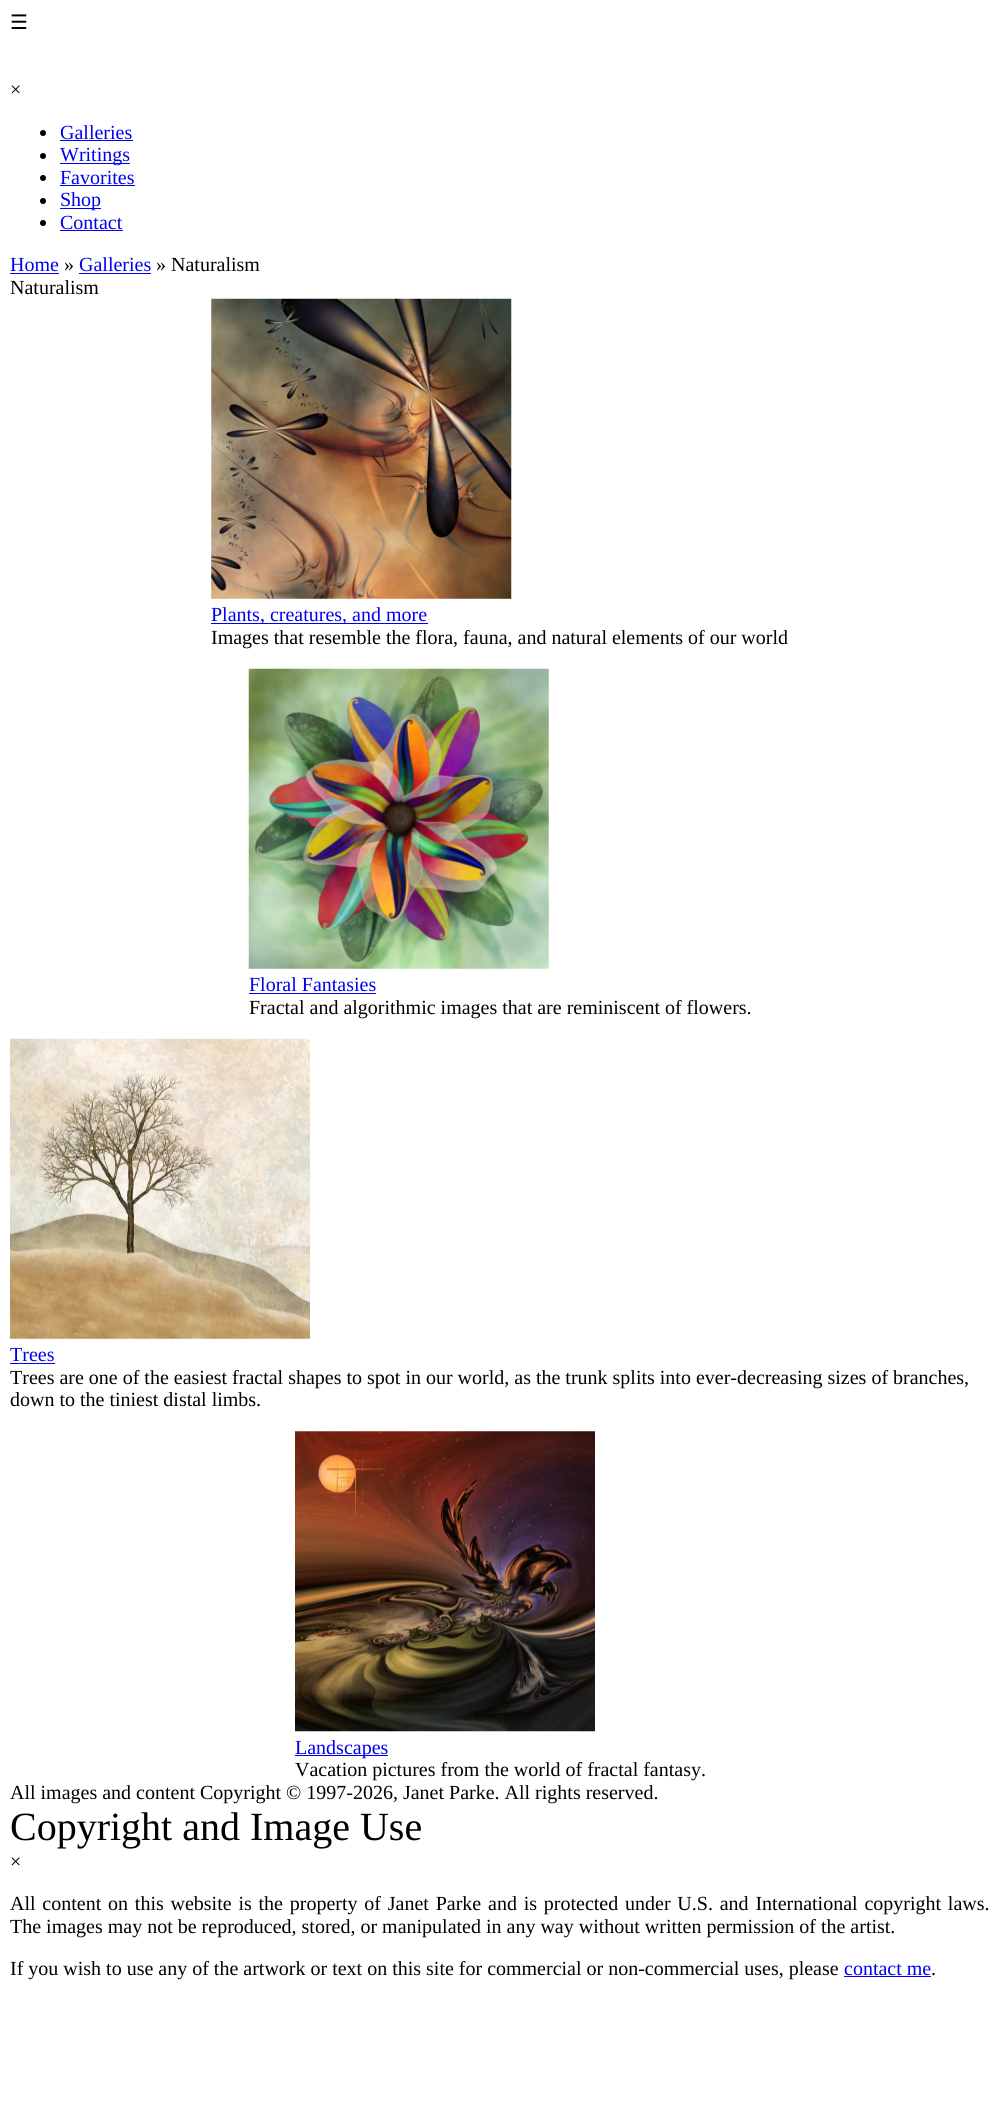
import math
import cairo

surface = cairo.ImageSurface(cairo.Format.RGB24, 999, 2123)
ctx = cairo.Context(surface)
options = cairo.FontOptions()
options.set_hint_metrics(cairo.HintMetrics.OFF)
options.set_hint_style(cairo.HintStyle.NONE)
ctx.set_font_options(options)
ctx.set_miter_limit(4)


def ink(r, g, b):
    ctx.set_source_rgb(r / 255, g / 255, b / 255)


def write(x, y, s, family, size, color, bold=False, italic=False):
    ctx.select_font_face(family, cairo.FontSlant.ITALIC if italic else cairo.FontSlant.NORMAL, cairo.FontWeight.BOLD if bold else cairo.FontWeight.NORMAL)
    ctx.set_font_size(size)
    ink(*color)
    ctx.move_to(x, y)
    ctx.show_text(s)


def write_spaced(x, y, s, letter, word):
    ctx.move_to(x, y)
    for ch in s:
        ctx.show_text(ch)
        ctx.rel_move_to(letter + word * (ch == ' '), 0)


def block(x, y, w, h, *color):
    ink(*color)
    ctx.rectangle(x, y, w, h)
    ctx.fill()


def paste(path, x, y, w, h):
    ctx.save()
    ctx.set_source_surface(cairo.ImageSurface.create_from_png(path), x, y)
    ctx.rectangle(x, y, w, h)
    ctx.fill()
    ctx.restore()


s1 = dict(family="DejaVu Sans", size=20, color=(0, 0, 0))
s2 = dict(family="Liberation Serif", size=20, color=(0, 0, 0))
s3 = dict(family="Liberation Serif", size=20, color=(0, 0, 238))
s4 = dict(family="Liberation Serif", size=40, color=(0, 0, 0))

ink(255, 255, 255)
ctx.paint()
write(10, 29, "☰", **s1)
write(10, 96, "×", **s2)
ctx.new_path()
ctx.arc(43, 133, 3, 0, 2 * math.pi)
ctx.fill()
write(60, 139, "Galleries", **s3)
block(60, 140, 73, 1, 0, 0, 238)
ink(0, 0, 0)
ctx.new_path()
ctx.arc(43, 156, 3, 0, 2 * math.pi)
ctx.fill()
block(60, 163, 70, 1, 0, 0, 238)
write(60, 161, "Writings", **s3)
ink(0, 0, 0)
ctx.new_path()
ctx.arc(43, 178, 3, 0, 2 * math.pi)
ctx.fill()
write(60, 184, "Favorites", **s3)
block(60, 185, 75, 1, 0, 0, 238)
ink(0, 0, 0)
ctx.new_path()
ctx.arc(43, 201, 3, 0, 2 * math.pi)
ctx.fill()
block(60, 208, 41, 1, 0, 0, 238)
write(60, 206, "Shop", **s3)
ink(0, 0, 0)
ctx.new_path()
ctx.arc(43, 223, 3, 0, 2 * math.pi)
ctx.fill()
write(60, 229, "Contact", **s3)
block(60, 230, 63, 1, 0, 0, 238)
write(10, 271, "Home", **s3)
block(10, 273, 49, 1, 0, 0, 238)
write(64, 271, "»", **s2)
write(79, 271, "Galleries", **s3)
block(79, 273, 72, 1, 0, 0, 238)
write(156, 271, "» Naturalism", **s2)
write(10, 294, "Naturalism", **s2)
paste("pic1.png", 211, 298, 301, 301)
block(211, 623, 217, 1, 0, 0, 238)
write(211, 621, "Plants, creatures, and more", **s3)
write(211, 644, "Images that resemble the flora, fauna, and natural elements of our world", **s2)
paste("pic2.png", 248, 668, 301, 301)
write(249, 991, "Floral Fantasies", **s3)
block(249, 993, 127, 1, 0, 0, 238)
write(249, 1014, "Fractal and algorithmic images that are reminiscent of flowers.", **s2)
paste("pic3.png", 10, 1038, 300, 301)
write(10, 1361, "Trees", **s3)
block(10, 1363, 45, 1, 0, 0, 238)
write(10, 1384, "Trees are one of the easiest fractal shapes to spot in our world, as the trunk splits into ever-decreasing sizes of branches,", **s2)
write(10, 1406, "down to the tiniest distal limbs.", **s2)
paste("pic4.png", 295, 1431, 300, 301)
block(295, 1755, 93, 1, 0, 0, 238)
write(295, 1754, "Landscapes", **s3)
write(295, 1776, "Vacation pictures from the world of fractal fantasy.", **s2)
write(10, 1799, "All images and content Copyright © 1997-2026, Janet Parke. All rights reserved.", **s2)
write(10, 1840, "Copyright and Image Use", **s4)
write(10, 1868, "×", **s2)
write_spaced(10, 1910, "All content on this website is the property of Janet Parke and is protected under U.S. and International copyright laws.", 0, 1.8)
write(10, 1933, "The images may not be reproduced, stored, or manipulated in any way without written permission of the artist.", **s2)
write(10, 1975, "If you wish to use any of the artwork or text on this site for commercial or non-commercial uses, please", **s2)
write(844, 1975, "contact me", **s3)
block(844, 1976, 87, 1, 0, 0, 238)
write(931, 1975, ".", **s2)
surface.write_to_png("screenshot.png")
